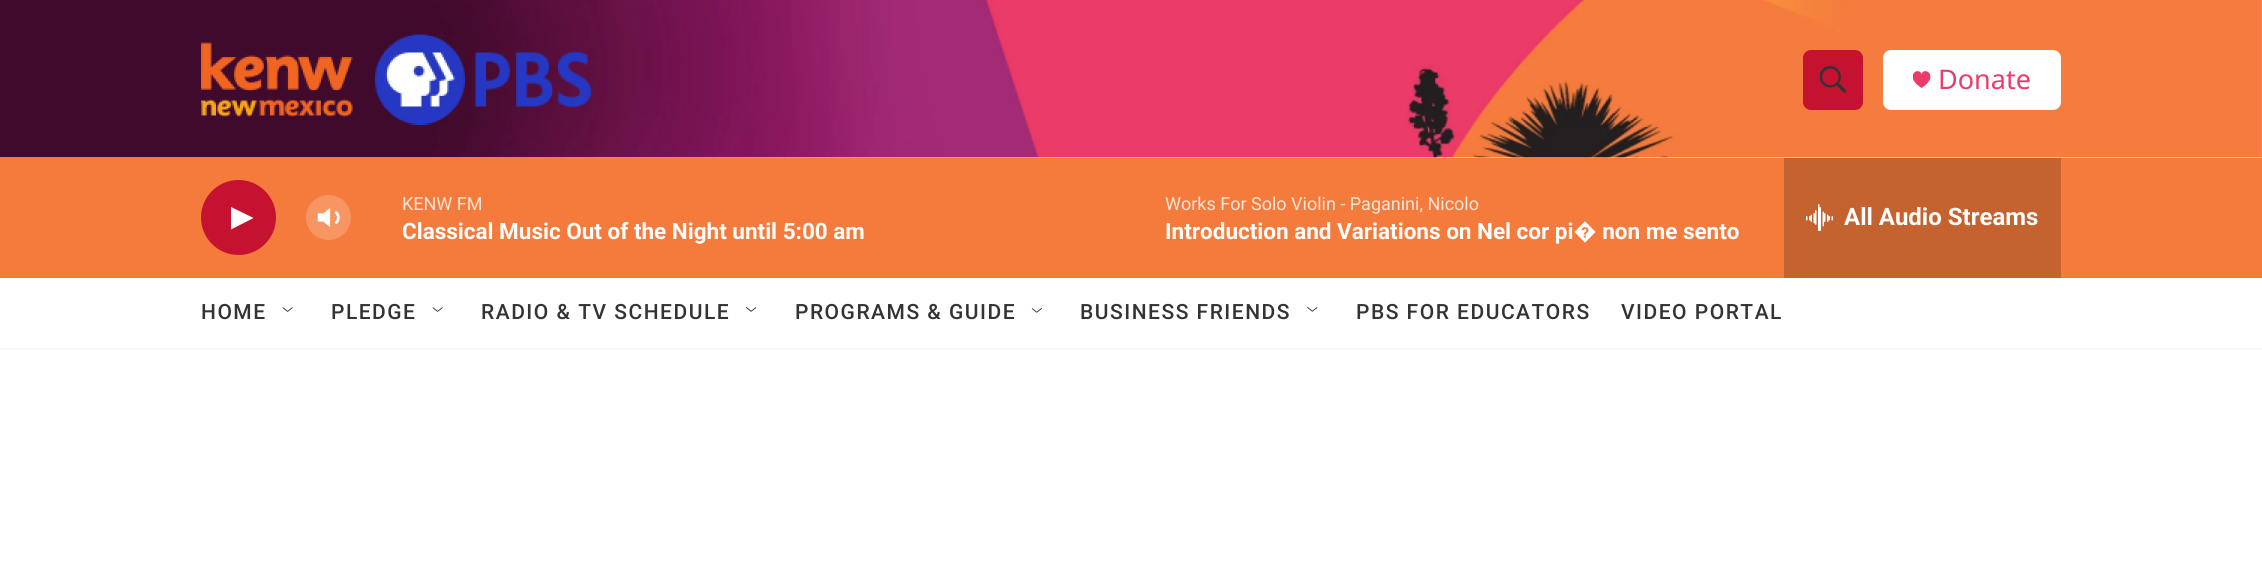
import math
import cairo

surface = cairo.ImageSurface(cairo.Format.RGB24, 2262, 581)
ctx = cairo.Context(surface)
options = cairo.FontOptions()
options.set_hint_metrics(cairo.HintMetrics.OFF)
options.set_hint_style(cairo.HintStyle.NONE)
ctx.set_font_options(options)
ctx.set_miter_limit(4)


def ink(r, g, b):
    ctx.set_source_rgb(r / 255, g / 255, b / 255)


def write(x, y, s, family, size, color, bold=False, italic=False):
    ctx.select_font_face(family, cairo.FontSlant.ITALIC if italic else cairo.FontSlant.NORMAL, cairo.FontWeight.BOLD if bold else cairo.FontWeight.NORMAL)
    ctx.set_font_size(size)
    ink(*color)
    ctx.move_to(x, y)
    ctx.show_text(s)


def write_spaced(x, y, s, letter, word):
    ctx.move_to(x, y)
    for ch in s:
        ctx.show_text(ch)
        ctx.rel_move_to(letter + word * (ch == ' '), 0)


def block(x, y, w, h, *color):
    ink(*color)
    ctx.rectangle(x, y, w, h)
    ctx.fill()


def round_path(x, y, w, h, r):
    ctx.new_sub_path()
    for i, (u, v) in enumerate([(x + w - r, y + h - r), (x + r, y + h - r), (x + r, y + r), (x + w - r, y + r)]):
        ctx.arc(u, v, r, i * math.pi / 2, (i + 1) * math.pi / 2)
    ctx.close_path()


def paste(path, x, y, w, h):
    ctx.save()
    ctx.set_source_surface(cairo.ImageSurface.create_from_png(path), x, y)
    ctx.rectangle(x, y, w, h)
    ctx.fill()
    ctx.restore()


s1 = dict(family="Noto Sans", size=27, color=(235, 59, 105))
s2 = dict(family="Roboto", size=18, color=(253, 229, 216))
s3 = dict(family="Roboto", size=22.5, color=(255, 255, 255), bold=True)
s4 = dict(family="Roboto", size=24, color=(255, 255, 255), bold=True)

ink(255, 255, 255)
ctx.paint()
block(0, 348, 2262, 2, 245, 245, 245)
paste("pic1.png", 0, 0, 2262, 158)
paste("pic2.png", 201, 34, 390, 91)
ink(196, 18, 48)
round_path(1803, 50, 60, 60, 8)
ctx.fill()
paste("pic3.png", 1820, 66, 27, 27)
ink(255, 255, 255)
round_path(1883, 50, 178, 60, 8)
ctx.fill()
ctx.save()
ctx.rectangle(1913, 71, 18, 18)
ctx.clip()
ink(235, 59, 105)
ctx.new_path()
ctx.move_to(1921.5, 74)
ctx.curve_to(1918.5, 66, 1903, 76, 1921.5, 88)
ctx.curve_to(1940, 76, 1924.5, 66, 1921.5, 74)
ctx.close_path()
ctx.fill()
ctx.restore()
write(1938, 89, "Donate", **s1)
block(0, 158, 2262, 120, 245, 123, 60)
ink(196, 18, 48)
ctx.new_path()
ctx.arc(238.5, 217.5, 37.5, 0, 2 * math.pi)
ctx.fill()
ink(255, 255, 255)
ctx.new_path()
ctx.move_to(231, 207)
ctx.line_to(253.5, 218)
ctx.line_to(231, 229.5)
ctx.close_path()
ctx.fill()
paste("pic4.png", 317, 208, 23, 19)
ctx.set_source_rgba(1, 1, 1, 0.2)
ctx.arc(328.5, 217.5, 22.5, 0, 2 * math.pi)
ctx.fill()
write(402, 210, "KENW FM", **s2)
write(402, 239, "Classical Music Out of the Night until 5:00 am", **s3)
write(1165, 210, "Works For Solo Violin - Paganini, Nicolo", **s2)
write(1165, 239, "Introduction and Variations on Nel cor pi� non me sento", **s3)
block(1784, 158, 277, 120, 196, 98, 48)
paste("pic5.png", 1806, 204, 27, 27)
write(1844, 225, "All Audio Streams", **s4)
ctx.select_font_face("Roboto Medium")
ctx.set_font_size(21)
ink(51, 51, 51)
write_spaced(201, 319, "HOME", 1.5, 0)
paste("pic6.png", 282, 307, 11, 5)
write_spaced(331, 319, "PLEDGE", 1.5, 0)
paste("pic6.png", 432, 307, 11, 5)
write_spaced(481, 319, "RADIO & TV SCHEDULE", 1.5, 0)
paste("pic7.png", 746, 307, 11, 5)
write_spaced(795, 319, "PROGRAMS & GUIDE", 1.5, 0)
paste("pic8.png", 1031, 308, 11, 5)
write_spaced(1080, 319, "BUSINESS FRIENDS", 1.5, 0)
paste("pic9.png", 1307, 307, 11, 5)
write_spaced(1356, 319, "PBS FOR EDUCATORS", 1.5, 0)
write_spaced(1621, 319, "VIDEO PORTAL", 1.5, 0)
surface.write_to_png("screenshot.png")
